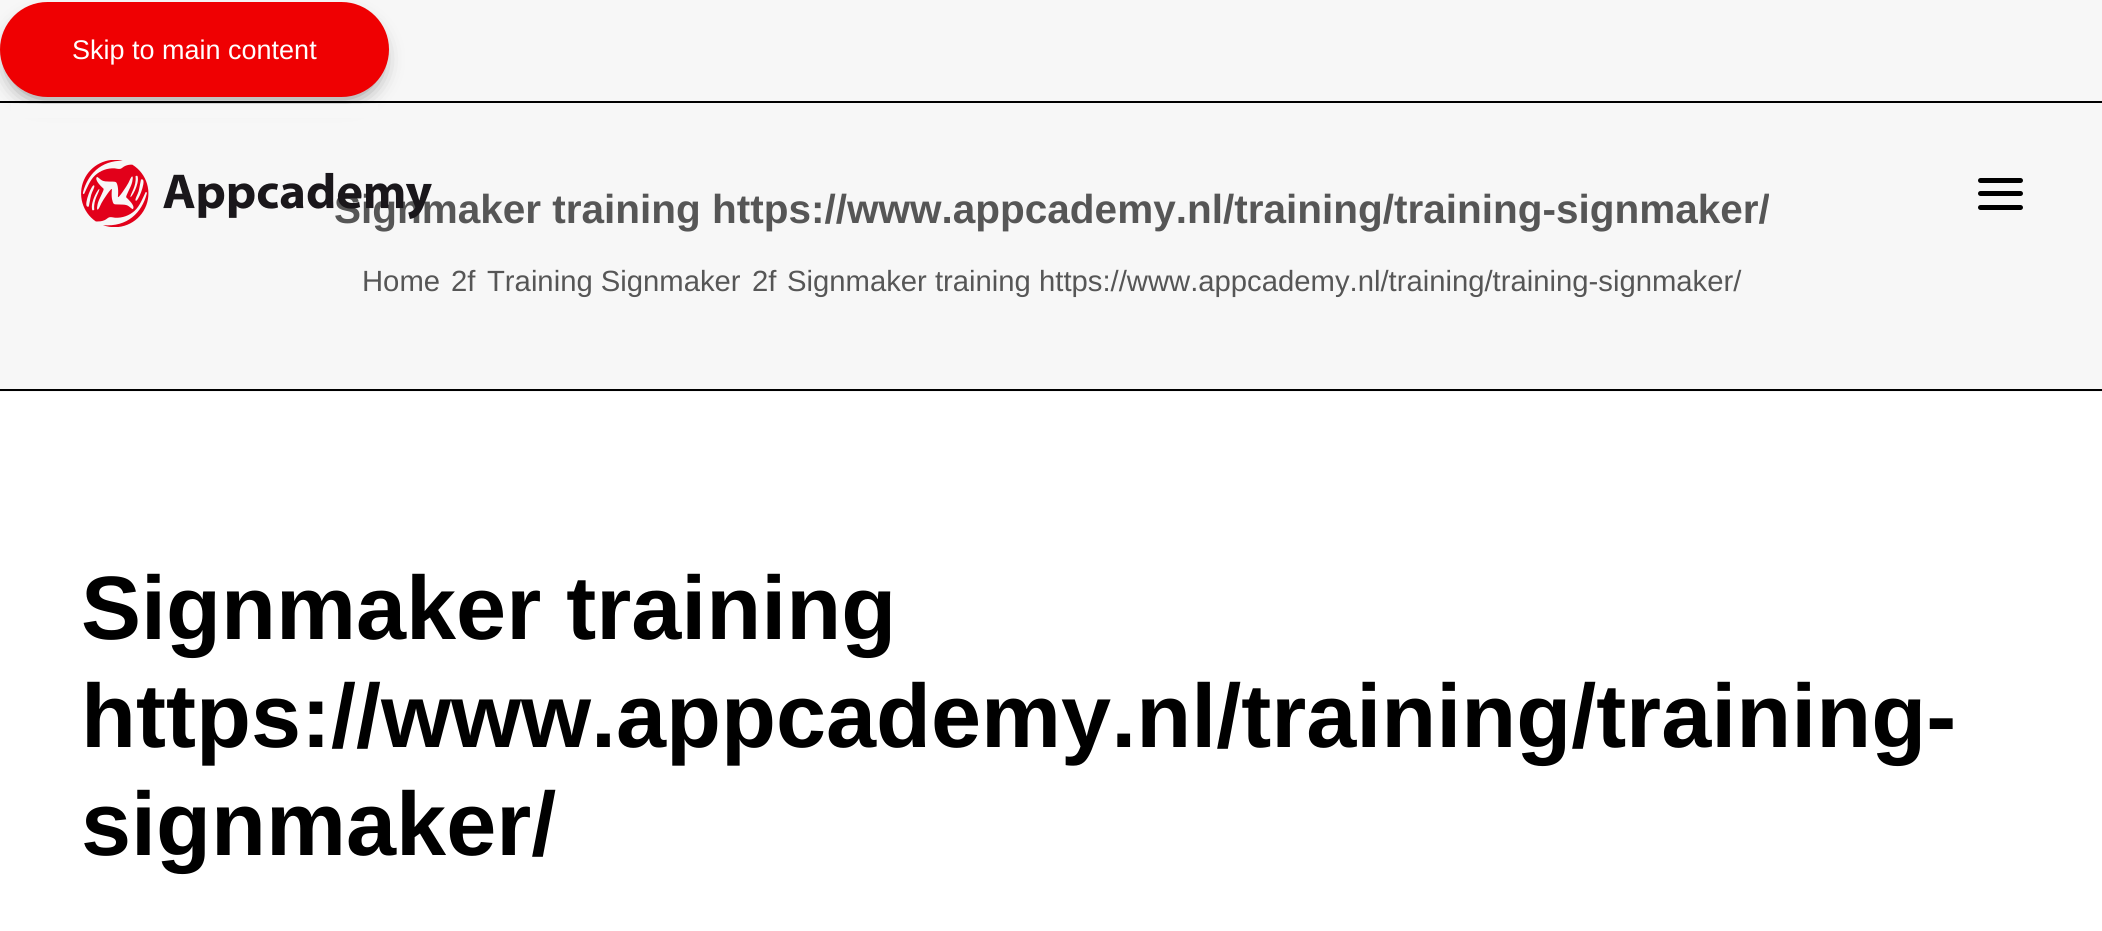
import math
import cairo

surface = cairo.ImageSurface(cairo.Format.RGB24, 2102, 931)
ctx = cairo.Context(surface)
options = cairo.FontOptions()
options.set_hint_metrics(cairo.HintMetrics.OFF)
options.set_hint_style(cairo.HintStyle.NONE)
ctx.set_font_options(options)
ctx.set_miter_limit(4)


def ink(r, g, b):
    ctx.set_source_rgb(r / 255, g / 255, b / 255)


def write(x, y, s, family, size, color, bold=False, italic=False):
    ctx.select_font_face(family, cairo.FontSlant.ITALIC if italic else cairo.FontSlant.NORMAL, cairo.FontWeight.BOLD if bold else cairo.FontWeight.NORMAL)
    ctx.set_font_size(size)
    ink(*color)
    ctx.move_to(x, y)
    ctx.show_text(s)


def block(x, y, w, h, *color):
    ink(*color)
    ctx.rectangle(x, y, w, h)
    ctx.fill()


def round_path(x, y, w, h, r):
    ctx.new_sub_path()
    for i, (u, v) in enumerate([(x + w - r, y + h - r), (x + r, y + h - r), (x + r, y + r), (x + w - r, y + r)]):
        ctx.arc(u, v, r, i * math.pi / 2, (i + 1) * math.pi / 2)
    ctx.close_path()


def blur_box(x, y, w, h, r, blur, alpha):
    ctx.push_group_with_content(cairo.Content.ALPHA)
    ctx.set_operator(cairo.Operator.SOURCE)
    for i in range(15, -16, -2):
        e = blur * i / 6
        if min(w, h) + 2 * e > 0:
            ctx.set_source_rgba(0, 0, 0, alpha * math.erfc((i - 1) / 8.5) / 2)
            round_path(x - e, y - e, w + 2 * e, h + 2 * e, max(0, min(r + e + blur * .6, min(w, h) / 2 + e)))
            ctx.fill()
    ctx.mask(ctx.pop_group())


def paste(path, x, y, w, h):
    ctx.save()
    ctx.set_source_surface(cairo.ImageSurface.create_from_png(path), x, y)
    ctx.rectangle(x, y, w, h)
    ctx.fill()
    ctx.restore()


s1 = dict(family="Liberation Sans", size=27, color=(255, 255, 255))
s2 = dict(family="Liberation Sans", size=40.5, color=(86, 86, 86), bold=True)
s3 = dict(family="Liberation Sans", size=29.25, color=(86, 86, 86))
s4 = dict(family="Liberation Sans", size=90, color=(0, 0, 0), bold=True)

ink(247, 247, 247)
ctx.paint()
ink(0, 0, 0)
blur_box(11, 23, 367, 72, 36, 11, 0.6)
ink(239, 0, 2)
round_path(1, 3, 387, 93, 46.5)
ctx.fill_preserve()
ctx.stroke()
write(72, 59, "Skip to main content", **s1)
write(334, 223, "Signmaker training https://www.appcademy.nl/training/training-signmaker/", **s2)
paste("pic1.png", 81, 160, 351, 67)
ink(0, 0, 0)
round_path(1978, 191, 45, 5, 2.5)
ctx.fill()
round_path(1978, 178, 45, 5, 2.5)
ctx.fill()
round_path(1978, 205, 45, 5, 2.5)
ctx.fill()
block(11, 104, 367, 14, 247, 247, 247)
block(0, 101, 2102, 2, 0, 0, 0)
block(0, 389, 2102, 2, 0, 0, 0)
write(362, 291, "Home", **s3)
write(451, 291, "2f", **s3)
write(487, 291, "Training Signmaker", **s3)
write(752, 291, "2f", **s3)
write(787, 291, "Signmaker training https://www.appcademy.nl/training/training-signmaker/", **s3)
block(0, 392, 2102, 539, 255, 255, 255)
write(81, 639, "Signmaker training", **s4)
write(81, 747, "https://www.appcademy.nl/training/training-", **s4)
write(81, 855, "signmaker/", **s4)
surface.write_to_png("screenshot.png")
